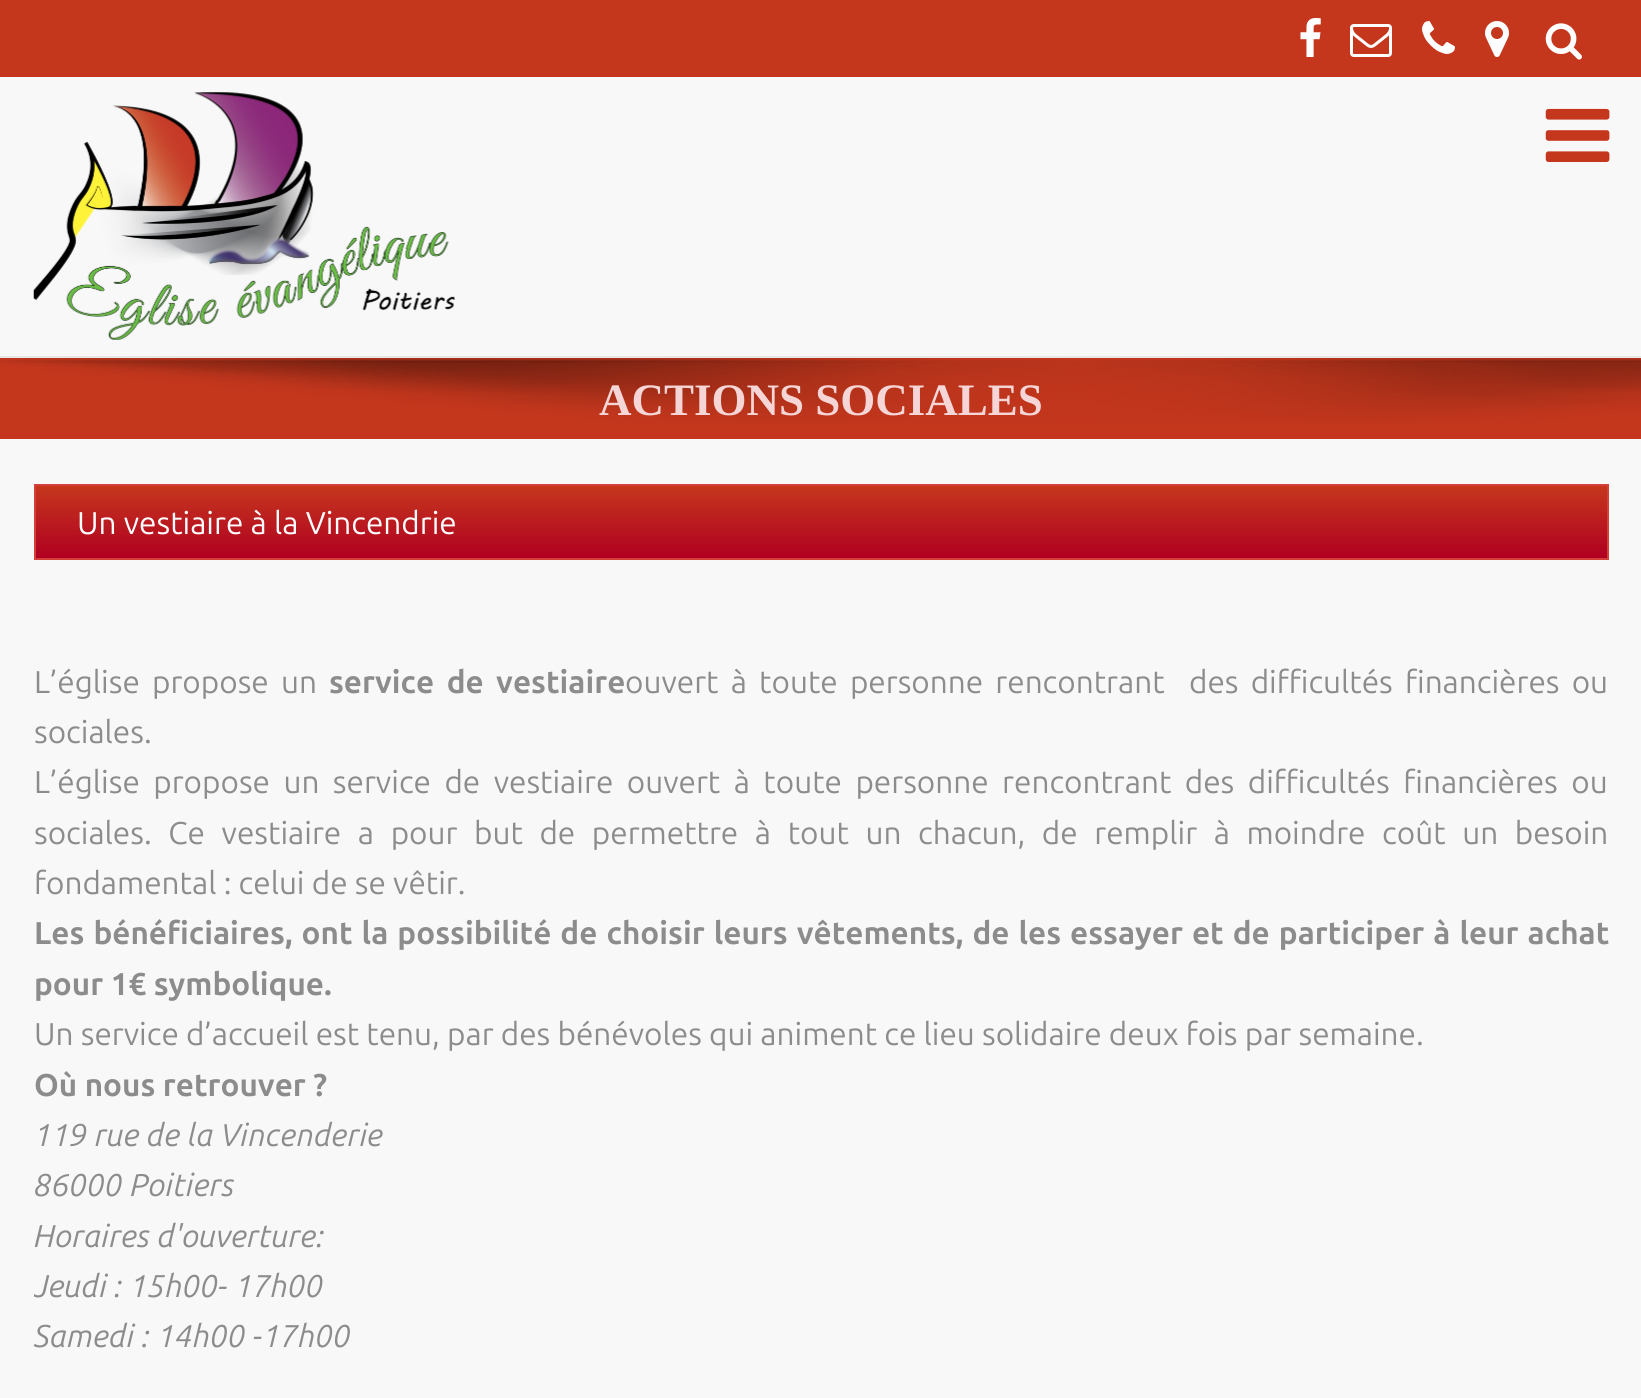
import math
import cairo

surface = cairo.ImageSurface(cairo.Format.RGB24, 1641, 1398)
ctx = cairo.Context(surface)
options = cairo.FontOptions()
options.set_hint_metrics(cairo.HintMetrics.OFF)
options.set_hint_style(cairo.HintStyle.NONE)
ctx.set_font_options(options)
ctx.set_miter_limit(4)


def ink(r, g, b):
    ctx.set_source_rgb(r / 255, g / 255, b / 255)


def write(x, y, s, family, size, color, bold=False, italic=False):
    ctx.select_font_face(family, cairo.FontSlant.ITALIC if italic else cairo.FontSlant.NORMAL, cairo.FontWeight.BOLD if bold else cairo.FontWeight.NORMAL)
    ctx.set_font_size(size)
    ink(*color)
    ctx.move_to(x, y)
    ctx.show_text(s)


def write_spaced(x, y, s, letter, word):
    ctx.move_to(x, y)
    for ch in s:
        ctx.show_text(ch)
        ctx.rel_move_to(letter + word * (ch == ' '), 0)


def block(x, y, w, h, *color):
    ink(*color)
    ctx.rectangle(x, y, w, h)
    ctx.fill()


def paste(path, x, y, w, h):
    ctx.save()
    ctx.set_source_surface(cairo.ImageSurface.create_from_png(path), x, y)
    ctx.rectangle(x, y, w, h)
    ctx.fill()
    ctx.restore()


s1 = dict(family="Liberation Serif", size=45, color=(245, 213, 213), bold=True)
s2 = dict(family="Ubuntu", size=31.5, color=(255, 255, 255))
s3 = dict(family="Ubuntu", size=31.5, color=(140, 140, 140))
s4 = dict(family="Ubuntu", size=31.5, color=(140, 140, 140), bold=True)
s5 = dict(family="Ubuntu", size=31.5, color=(140, 140, 140), italic=True)

ink(197, 55, 29)
ctx.paint()
paste("pic1.png", 1300, 18, 21, 39)
paste("pic2.png", 1350, 24, 42, 33)
paste("pic3.png", 1422, 21, 33, 33)
paste("pic4.png", 1485, 21, 24, 36)
paste("pic5.png", 1545, 23, 37, 37)
block(0, 77, 1641, 279, 248, 248, 248)
block(0, 356, 1641, 2, 231, 231, 231)
paste("pic6.png", 33, 92, 422, 248)
paste("pic7.png", 1545, 108, 65, 54)
paste("pic8.png", 0, 358, 1641, 66)
write(599, 415, "ACTIONS SOCIALES", **s1)
block(0, 439, 1641, 959, 248, 248, 248)
gradient = cairo.LinearGradient(821, 486, 821, 558)
gradient.add_color_stop_rgba(0, 0.773, 0.216, 0.114, 1)
gradient.add_color_stop_rgba(1, 0.69, 0, 0.129, 1)
ctx.set_source(gradient)
ctx.rectangle(36, 486, 1571, 72)
ctx.fill()
ctx.rectangle(35, 485, 1573, 74)
ink(212, 63, 58)
ctx.stroke()
write(77, 534, "Un vestiaire à la Vincendrie", **s2)
ink(140, 140, 140)
write_spaced(34, 693, "L’église propose un", 0, 5)
ctx.select_font_face("Ubuntu", cairo.FontSlant.NORMAL, cairo.FontWeight.BOLD)
write_spaced(329, 693, "service de vestiaire", 0, 5)
ctx.select_font_face("Ubuntu")
write_spaced(625, 693, "ouvert à toute personne rencontrant  des difficultés financières ou", 0, 5)
write(34, 743, "sociales.", **s3)
write_spaced(34, 793, "L’église propose un service de vestiaire ouvert à toute personne rencontrant des difficultés financières ou", 0, 6.25)
write_spaced(34, 844, "sociales. Ce vestiaire a pour but de permettre à tout un chacun, de remplir à moindre coût un besoin", 0, 9.4)
write(34, 894, "fondamental : celui de se vêtir.", **s3)
ctx.select_font_face("Ubuntu", cairo.FontSlant.NORMAL, cairo.FontWeight.BOLD)
write_spaced(34, 944, "Les bénéficiaires, ont la possibilité de choisir leurs vêtements, de les essayer et de participer à leur achat", 0, 1.6)
write(34, 995, "pour 1€ symbolique.", **s4)
write(34, 1045, "Un service d’accueil est tenu, par des bénévoles qui animent ce lieu solidaire deux fois par semaine.", **s3)
write(34, 1096, "Où nous retrouver ?", **s4)
write(34, 1146, "119 rue de la Vincenderie", **s5)
write(34, 1196, "86000 Poitiers", **s5)
write(34, 1247, "Horaires d'ouverture:", **s5)
ctx.save()
ctx.rectangle(34, 484, 1575, 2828)
ctx.clip()
write(34, 1297, "Jeudi : 15h00- 17h00", **s5)
ctx.restore()
write(34, 1347, "Samedi : 14h00 -17h00", **s5)
surface.write_to_png("screenshot.png")
